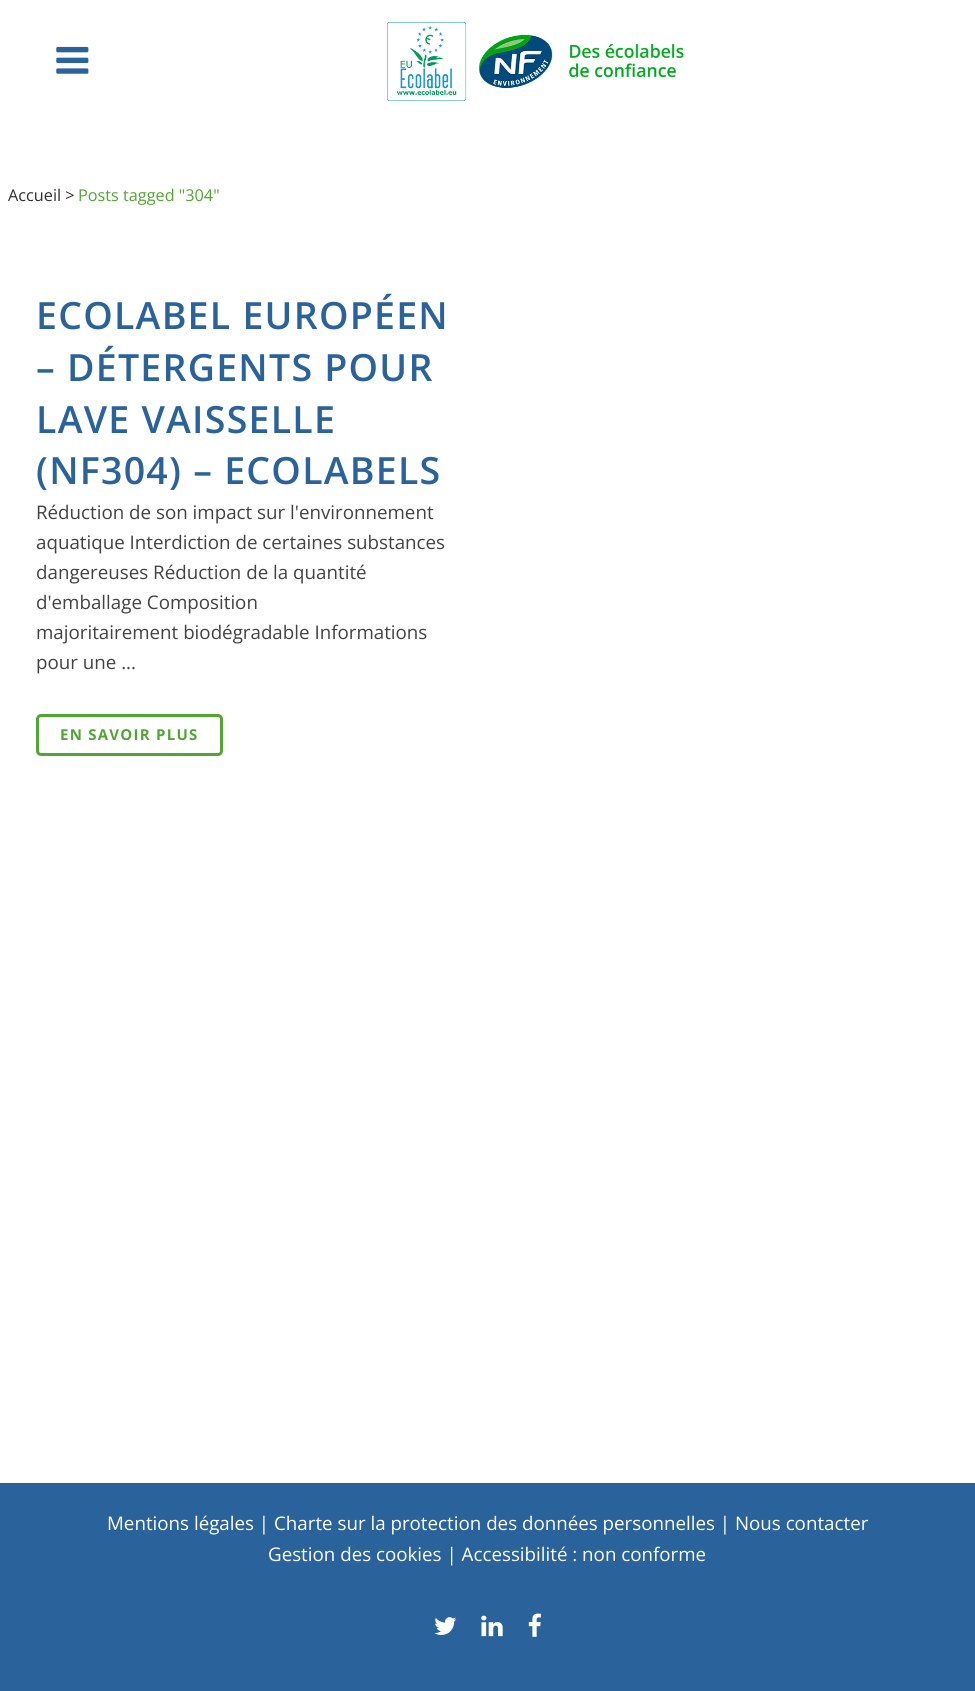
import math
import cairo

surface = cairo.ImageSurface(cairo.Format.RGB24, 975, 1691)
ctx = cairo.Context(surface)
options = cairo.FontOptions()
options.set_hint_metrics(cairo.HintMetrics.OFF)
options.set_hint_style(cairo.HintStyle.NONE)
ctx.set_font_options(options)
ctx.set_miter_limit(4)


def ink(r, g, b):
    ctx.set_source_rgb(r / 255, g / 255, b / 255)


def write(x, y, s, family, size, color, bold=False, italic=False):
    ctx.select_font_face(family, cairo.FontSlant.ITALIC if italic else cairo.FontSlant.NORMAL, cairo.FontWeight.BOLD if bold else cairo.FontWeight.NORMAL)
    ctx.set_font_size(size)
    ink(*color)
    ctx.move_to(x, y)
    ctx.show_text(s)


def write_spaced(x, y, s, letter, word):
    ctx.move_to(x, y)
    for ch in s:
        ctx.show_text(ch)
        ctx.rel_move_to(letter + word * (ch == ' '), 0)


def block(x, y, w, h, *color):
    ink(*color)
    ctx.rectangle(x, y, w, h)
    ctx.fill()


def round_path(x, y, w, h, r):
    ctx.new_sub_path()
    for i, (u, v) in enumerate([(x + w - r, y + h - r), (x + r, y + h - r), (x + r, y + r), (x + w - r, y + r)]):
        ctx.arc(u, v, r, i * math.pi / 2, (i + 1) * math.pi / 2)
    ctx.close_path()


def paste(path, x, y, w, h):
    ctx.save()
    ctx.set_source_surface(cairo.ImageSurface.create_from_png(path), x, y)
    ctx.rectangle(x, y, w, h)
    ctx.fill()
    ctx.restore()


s1 = dict(family="Open Sans", size=16.25, color=(48, 48, 48))
s2 = dict(family="Open Sans", size=16.25, color=(81, 166, 51))
s3 = dict(family="Open Sans", size=18.75, color=(66, 66, 66))
s4 = dict(family="Open Sans", size=18.75, color=(255, 255, 255))

ink(255, 255, 255)
ctx.paint()
paste("pic1.png", 56, 46, 33, 28)
paste("pic2.png", 387, 22, 297, 79)
write(8, 201, "Accueil >", **s1)
write(78, 201, "Posts tagged \"304\"", **s2)
ctx.select_font_face("Open Sans SemiBold")
ctx.set_font_size(37.5)
ink(42, 99, 155)
write_spaced(36, 329, "ECOLABEL EUROPÉEN", 1.25, 0)
write_spaced(36, 381, "– DÉTERGENTS POUR", 1.25, 0)
write_spaced(36, 433, "LAVE VAISSELLE", 1.25, 0)
write_spaced(36, 484, "(NF304) – ECOLABELS", 1.25, 0)
write(36, 519, "Réduction de son impact sur l'environnement", **s3)
write(36, 549, "aquatique Interdiction de certaines substances", **s3)
write(36, 579, "dangereuses Réduction de la quantité", **s3)
write(36, 609, "d'emballage Composition", **s3)
write(36, 639, "majoritairement biodégradable Informations", **s3)
write(36, 669, "pour une ...", **s3)
round_path(37.5, 715.5, 184, 39, 3.5)
ink(81, 166, 51)
ctx.set_line_width(3)
ctx.stroke()
ctx.select_font_face("Open Sans", cairo.FontSlant.NORMAL, cairo.FontWeight.BOLD)
ctx.set_font_size(15)
write_spaced(60, 740, "EN SAVOIR PLUS", 1.25, 0)
block(0, 1483, 975, 208, 42, 99, 155)
write(107, 1530, "Mentions légales | Charte sur la protection des données personnelles | Nous contacter", **s4)
write(268, 1561, "Gestion des cookies | Accessibilité : non conforme", **s4)
paste("pic3.png", 434, 1617, 23, 18)
paste("pic4.png", 481, 1615, 22, 22)
paste("pic5.png", 528, 1613, 13, 24)
surface.write_to_png("screenshot.png")
